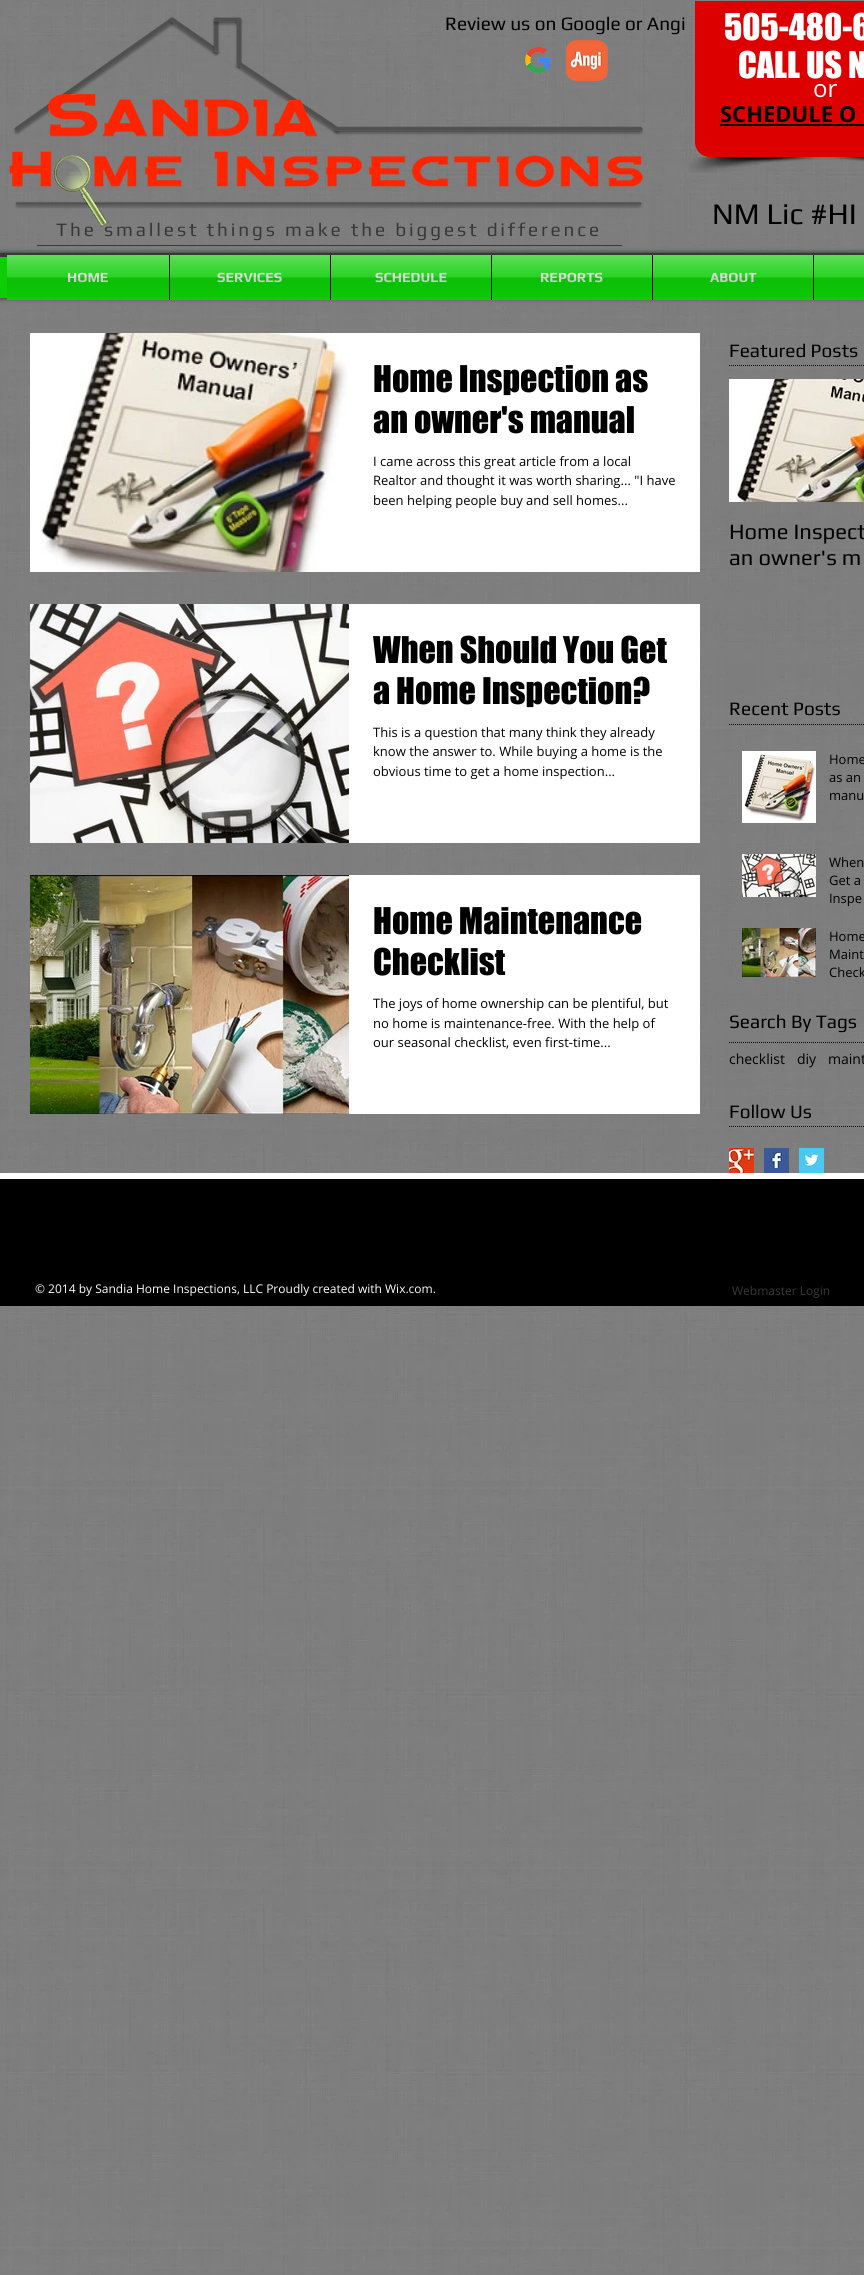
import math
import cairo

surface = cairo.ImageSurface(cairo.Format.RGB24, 864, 2275)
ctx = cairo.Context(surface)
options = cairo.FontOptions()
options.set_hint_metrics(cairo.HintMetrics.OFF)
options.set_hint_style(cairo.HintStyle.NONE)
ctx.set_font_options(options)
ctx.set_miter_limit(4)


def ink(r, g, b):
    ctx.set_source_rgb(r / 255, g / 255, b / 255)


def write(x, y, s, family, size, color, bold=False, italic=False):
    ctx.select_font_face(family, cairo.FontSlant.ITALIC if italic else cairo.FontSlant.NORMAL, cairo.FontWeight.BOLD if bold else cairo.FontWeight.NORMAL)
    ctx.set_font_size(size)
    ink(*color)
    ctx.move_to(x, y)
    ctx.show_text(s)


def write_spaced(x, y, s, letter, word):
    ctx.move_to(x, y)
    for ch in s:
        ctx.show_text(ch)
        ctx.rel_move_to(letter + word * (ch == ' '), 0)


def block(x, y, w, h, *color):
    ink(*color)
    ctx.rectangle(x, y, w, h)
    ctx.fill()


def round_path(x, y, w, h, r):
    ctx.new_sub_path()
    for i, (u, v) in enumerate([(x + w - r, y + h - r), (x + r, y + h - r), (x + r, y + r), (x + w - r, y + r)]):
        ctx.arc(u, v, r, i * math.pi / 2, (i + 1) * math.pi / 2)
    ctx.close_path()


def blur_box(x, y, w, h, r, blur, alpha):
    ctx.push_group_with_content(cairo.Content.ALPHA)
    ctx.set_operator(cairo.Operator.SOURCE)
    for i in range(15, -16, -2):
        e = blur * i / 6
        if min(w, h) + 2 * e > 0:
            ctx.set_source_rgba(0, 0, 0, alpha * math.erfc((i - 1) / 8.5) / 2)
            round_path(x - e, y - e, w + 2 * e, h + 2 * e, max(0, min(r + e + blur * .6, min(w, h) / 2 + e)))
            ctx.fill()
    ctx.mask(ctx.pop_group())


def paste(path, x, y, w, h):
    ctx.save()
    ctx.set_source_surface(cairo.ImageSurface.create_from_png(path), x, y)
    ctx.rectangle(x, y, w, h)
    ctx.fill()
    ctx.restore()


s1 = dict(family="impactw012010", size=34, color=(255, 255, 255))
s2 = dict(family="Open Sans", size=24, color=(255, 255, 255))
s3 = dict(family="Open Sans", size=22, color=(0, 0, 0), bold=True)
s4 = dict(family="Play", size=19, color=(0, 0, 0))
s5 = dict(family="Play", size=30, color=(0, 0, 0))
s6 = dict(family="Play", size=14, color=(217, 217, 217), bold=True)
s7 = dict(family="impactw012010", size=34, color=(0, 0, 0))
s8 = dict(family="Open Sans", size=13, color=(0, 0, 0))
s9 = dict(family="Play", size=22, color=(0, 0, 0))
s10 = dict(family="Open Sans", size=14, color=(0, 0, 0))
s11 = dict(family="Open Sans", size=12, color=(255, 255, 255))
s12 = dict(family="Open Sans", size=12, color=(56, 56, 56))

ink(255, 255, 255)
ctx.paint()
paste("pic1.png", 0, 0, 864, 2275)
ink(221, 0, 0)
ctx.new_path()
ctx.move_to(695, 1)
ctx.line_to(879, 1)
ctx.line_to(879, 142)
ctx.curve_to(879, 150.5, 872.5, 157, 864, 157)
ctx.line_to(710, 157)
ctx.curve_to(701.5, 157, 695, 150.5, 695, 142)
ctx.close_path()
ctx.fill()
write(724, 40, "505-480-6", **s1)
write(738, 78, "CALL US N", **s1)
write(813, 97, "or", **s2)
write(720, 122, "SCHEDULE O", **s3)
block(720, 124, 144, 2, 0, 0, 0)
paste("pic2.png", 688, 157, 144, 16)
paste("pic3.png", 820, 157, 44, 5)
ctx.select_font_face("Play")
ctx.set_font_size(19)
ink(56, 56, 56)
write_spaced(56, 236, "The smallest things make the biggest difference", 2.85, 0)
paste("pic4.png", 9, 17, 635, 210)
write(445, 30, "Review us on Google or Angi", **s4)
paste("pic5.png", 525, 46, 26, 28)
paste("pic6.png", 566, 40, 42, 41)
write(712, 224, "NM Lic #HI", **s5)
block(37, 245, 585, 1, 56, 56, 56)
ink(0, 0, 0)
blur_box(0, 253, 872, 45, 0, 2.5, 0.7)
block(0, 257, 7, 41, 12, 205, 6)
block(0, 253, 864, 4, 56, 56, 56)
block(7, 255, 162, 45, 12, 205, 6)
write(67, 282, "HOME", **s6)
paste("pic7.png", 7, 255, 162, 43)
block(170, 255, 160, 45, 12, 205, 6)
block(169, 255, 1, 45, 0, 0, 0)
write(217, 282, "SERVICES", **s6)
paste("pic8.png", 170, 255, 160, 43)
block(331, 255, 160, 45, 12, 205, 6)
block(330, 255, 1, 45, 0, 0, 0)
write(375, 282, "SCHEDULE", **s6)
paste("pic9.png", 331, 255, 160, 43)
block(492, 255, 160, 45, 12, 205, 6)
block(491, 255, 1, 45, 0, 0, 0)
write(540, 282, "REPORTS", **s6)
paste("pic10.png", 492, 255, 160, 43)
block(653, 255, 160, 45, 12, 205, 6)
block(652, 255, 1, 45, 0, 0, 0)
write(710, 282, "ABOUT", **s6)
paste("pic11.png", 653, 255, 160, 43)
block(814, 255, 50, 45, 12, 205, 6)
block(813, 255, 1, 45, 0, 0, 0)
paste("pic12.png", 814, 255, 50, 43)
write(729, 357, "Featured Posts", **s4)
paste("pic13.png", 30, 333, 319, 239)
block(349, 333, 351, 239, 255, 255, 255)
write(373, 392, "Home Inspection as", **s7)
write(373, 433, "an owner's manual", **s7)
write(373, 466, "I came across this great article from a local", **s8)
write(373, 485, "Realtor and thought it was worth sharing... \"I have", **s8)
write(373, 505, "been helping people buy and sell homes...", **s8)
paste("pic14.png", 30, 604, 319, 239)
block(349, 604, 351, 239, 255, 255, 255)
write(373, 663, "When Should You Get", **s7)
write(373, 704, "a Home Inspection?", **s7)
write(373, 737, "This is a question that many think they already", **s8)
write(373, 756, "know the answer to. While buying a home is the", **s8)
write(373, 776, "obvious time to get a home inspection...", **s8)
paste("pic15.png", 30, 875, 319, 239)
block(349, 875, 351, 239, 255, 255, 255)
write(373, 934, "Home Maintenance", **s7)
write(373, 975, "Checklist", **s7)
write(373, 1008, "The joys of home ownership can be plentiful, but", **s8)
write(373, 1028, "no home is maintenance-free. With the help of", **s8)
write(373, 1047, "our seasonal checklist, even first-time...", **s8)
ctx.new_path()
ctx.move_to(729, 365.5)
ctx.line_to(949, 365.5)
ctx.set_line_width(1)
ctx.set_dash([1, 1])
ctx.stroke()
paste("pic16.png", 729, 379, 135, 123)
write(729, 539, "Home Inspect", **s9)
write(729, 565, "an owner's m", **s9)
write(729, 715, "Recent Posts", **s4)
ctx.new_path()
ctx.move_to(729, 724.5)
ctx.line_to(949, 724.5)
ctx.stroke()
paste("pic17.png", 742, 751, 74, 72)
write(829, 764, "Home", **s8)
write(829, 782, "as an", **s8)
write(829, 800, "manu", **s8)
paste("pic18.png", 742, 854, 74, 43)
write(829, 867, "When", **s8)
write(829, 885, "Get a", **s8)
write(829, 903, "Inspe", **s8)
paste("pic19.png", 742, 928, 74, 49)
write(829, 941, "Home", **s8)
write(829, 959, "Maint", **s8)
write(829, 977, "Check", **s8)
write(729, 1028, "Search By Tags", **s4)
ctx.new_path()
ctx.move_to(729, 1042.5)
ctx.line_to(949, 1042.5)
ctx.stroke()
write(729, 1064, "checklist", **s10)
write(797, 1064, "diy", **s10)
write(828, 1064, "maint", **s10)
write(729, 1118, "Follow Us", **s4)
ctx.new_path()
ctx.move_to(729, 1126.5)
ctx.line_to(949, 1126.5)
ctx.stroke()
paste("pic20.png", 729, 1148, 25, 25)
paste("pic21.png", 764, 1148, 25, 25)
paste("pic22.png", 799, 1148, 25, 25)
block(0, 1179, 864, 127, 0, 0, 0)
block(0, 1173, 864, 6, 255, 255, 255)
write(35, 1293, "© 2014 by Sandia Home Inspections, LLC Proudly created with Wix.com.", **s11)
write(732, 1295, "Webmaster Login", **s12)
surface.write_to_png("screenshot.png")
